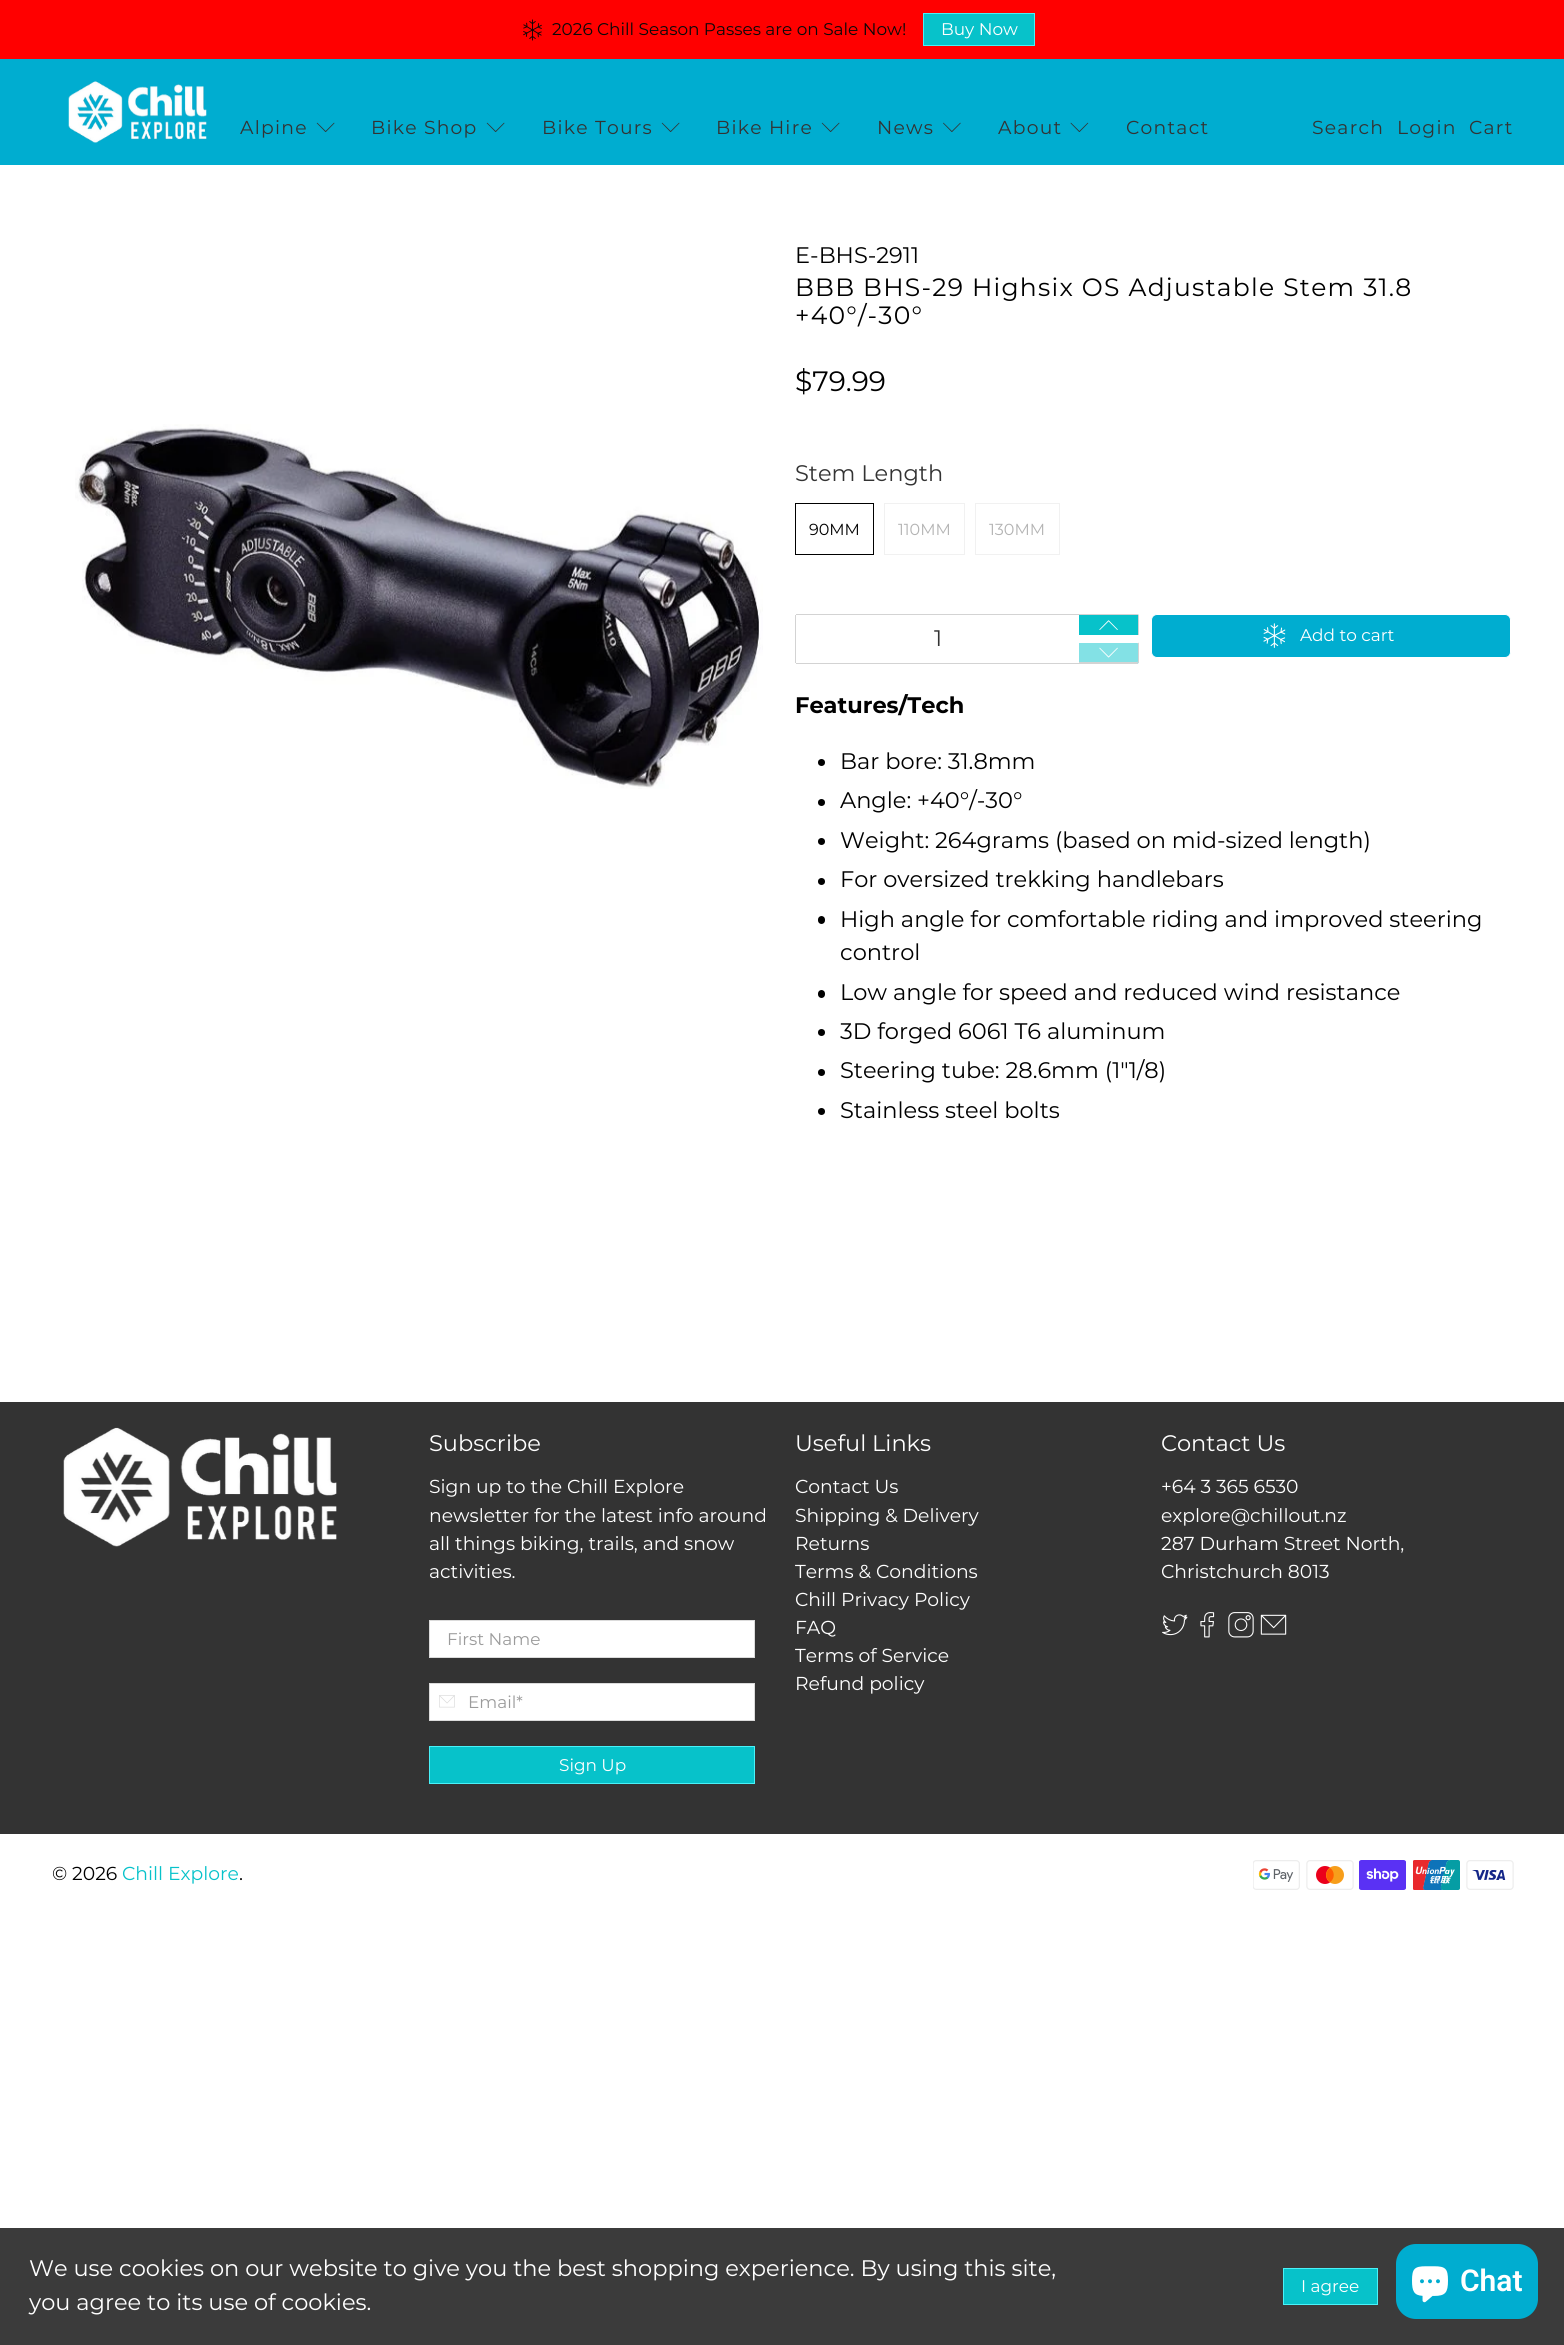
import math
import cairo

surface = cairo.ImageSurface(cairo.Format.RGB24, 1564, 2345)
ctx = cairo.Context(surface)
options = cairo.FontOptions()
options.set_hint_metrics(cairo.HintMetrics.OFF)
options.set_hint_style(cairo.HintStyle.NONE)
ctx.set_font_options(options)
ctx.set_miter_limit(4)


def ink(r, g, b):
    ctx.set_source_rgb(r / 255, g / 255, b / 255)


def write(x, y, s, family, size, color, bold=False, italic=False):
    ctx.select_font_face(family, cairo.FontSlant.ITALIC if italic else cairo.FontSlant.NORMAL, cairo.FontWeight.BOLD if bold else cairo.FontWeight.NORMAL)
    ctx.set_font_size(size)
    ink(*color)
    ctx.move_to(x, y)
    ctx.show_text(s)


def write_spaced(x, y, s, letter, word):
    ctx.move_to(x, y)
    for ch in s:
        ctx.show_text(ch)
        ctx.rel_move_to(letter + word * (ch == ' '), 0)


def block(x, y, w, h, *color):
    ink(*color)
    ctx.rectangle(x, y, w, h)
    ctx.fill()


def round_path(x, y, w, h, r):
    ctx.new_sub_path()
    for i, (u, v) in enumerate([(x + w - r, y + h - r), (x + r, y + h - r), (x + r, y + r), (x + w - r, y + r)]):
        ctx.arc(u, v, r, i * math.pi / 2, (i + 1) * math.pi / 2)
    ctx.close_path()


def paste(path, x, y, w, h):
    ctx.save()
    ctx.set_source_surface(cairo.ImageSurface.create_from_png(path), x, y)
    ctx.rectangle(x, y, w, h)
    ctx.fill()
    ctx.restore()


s1 = dict(family="Montserrat", size=16.9, color=(8, 8, 8))
s2 = dict(family="Montserrat", size=16.9, color=(255, 255, 255))
s3 = dict(family="Montserrat", size=22.5, color=(0, 0, 0))
s4 = dict(family="Montserrat", size=28, color=(0, 0, 0))
s5 = dict(family="Montserrat", size=22.5, color=(51, 51, 51))
s6 = dict(family="Montserrat", size=16, color=(0, 0, 0))
s7 = dict(family="Montserrat", size=16, color=(179, 179, 179))
s8 = dict(family="Montserrat", size=22.5, color=(0, 0, 0), bold=True)
s9 = dict(family="Montserrat", size=22.5, color=(255, 255, 255))
s10 = dict(family="Montserrat", size=18.75, color=(255, 255, 255))
s11 = dict(family="Montserrat", size=16.9, color=(155, 155, 155))
s12 = dict(family="Montserrat", size=18.75, color=(0, 0, 0))
s13 = dict(family="Montserrat", size=18.75, color=(7, 194, 202))
s14 = dict(family="Roboto SemiBold", size=30, color=(255, 255, 255))

ink(255, 255, 255)
ctx.paint()
block(0, 0, 1564, 59, 255, 0, 0)
paste("pic1.png", 523, 19, 19, 22)
write(552, 35, "2026 Chill Season Passes are on Sale Now!", **s1)
ink(7, 194, 202)
ctx.rectangle(923.5, 13.5, 111, 32)
ctx.fill_preserve()
ink(73, 242, 248)
ctx.set_line_width(1)
ctx.stroke()
write(941, 35, "Buy Now", **s2)
block(0, 59, 1564, 106, 0, 173, 208)
paste("pic2.png", 68, 81, 139, 62)
ctx.set_font_size(18.75)
ink(51, 51, 51)
write_spaced(240, 134, "Alpine", 1.25, 0)
paste("pic3.png", 316, 122, 19, 10)
write_spaced(371, 134, "Bike Shop", 1.25, 0)
paste("pic3.png", 486, 122, 19, 10)
write_spaced(542, 134, "Bike Tours", 1.25, 0)
paste("pic3.png", 661, 122, 19, 10)
write_spaced(716, 134, "Bike Hire", 1.25, 0)
paste("pic3.png", 821, 122, 19, 10)
write_spaced(877, 134, "News", 1.25, 0)
paste("pic4.png", 943, 122, 18, 10)
write_spaced(998, 134, "About", 1.25, 0)
paste("pic5.png", 1070, 122, 19, 10)
write_spaced(1126, 134, "Contact", 1.25, 0)
write_spaced(1312, 134, "Search", 1.25, 0)
write_spaced(1397, 134, "Login", 1.25, 0)
write_spaced(1469, 134, "Cart", 1.25, 0)
paste("pic6.png", 75, 424, 688, 365)
write(795, 263, "E-BHS-2911", **s3)
ctx.set_font_size(25)
write_spaced(795, 296, "BBB BHS-29 Highsix OS Adjustable Stem 31.8", 1.25, 0)
write_spaced(795, 324, "+40°/-30°", 1.25, 0)
write(795, 391, "$79.99", **s4)
write(795, 481, "Stem Length", **s5)
ctx.rectangle(795.5, 503.5, 78, 51)
ink(0, 0, 0)
ctx.stroke()
write(809, 535, "90MM", **s6)
ctx.rectangle(884.5, 503.5, 80, 51)
ink(241, 241, 241)
ctx.stroke()
write(898, 535, "110MM", **s7)
ctx.rectangle(975.5, 503.5, 84, 51)
ink(241, 241, 241)
ctx.stroke()
write(989, 535, "130MM", **s7)
ink(7, 194, 202)
ctx.new_path()
ctx.move_to(1079, 614)
ctx.line_to(1136.5, 614)
ctx.curve_to(1138, 614, 1139, 615, 1139, 616.5)
ctx.line_to(1139, 635)
ctx.line_to(1079, 635)
ctx.close_path()
ctx.fill()
block(1079, 614, 59, 1, 211, 211, 211)
block(1138, 615, 1, 20, 211, 211, 211)
paste("pic7.png", 1099, 620, 19, 10)
block(796, 614, 283, 1, 211, 211, 211)
block(796, 663, 283, 1, 211, 211, 211)
block(795, 615, 1, 48, 211, 211, 211)
write(934, 646, "1", **s5)
ink(131, 225, 229)
ctx.new_path()
ctx.move_to(1079, 643)
ctx.line_to(1139, 643)
ctx.line_to(1139, 661.5)
ctx.curve_to(1139, 663, 1138, 664, 1136.5, 664)
ctx.line_to(1079, 664)
ctx.close_path()
ctx.fill()
ink(211, 211, 211)
ctx.new_path()
ctx.move_to(1139, 642.5)
ctx.line_to(1139, 662.5)
ctx.line_to(1138, 663)
ctx.line_to(1137, 662)
ctx.line_to(1138, 661.5)
ctx.line_to(1138, 644)
ctx.line_to(1137, 644)
ctx.close_path()
ctx.fill()
ctx.new_path()
ctx.move_to(1137, 664)
ctx.line_to(1079, 664)
ctx.line_to(1079, 662)
ctx.line_to(1137, 662)
ctx.line_to(1138, 663)
ctx.close_path()
ctx.fill()
paste("pic8.png", 1099, 647, 19, 11)
ink(0, 173, 208)
round_path(1151.5, 614.5, 359, 43, 5.5)
ctx.fill_preserve()
ink(255, 255, 255)
ctx.stroke()
paste("pic9.png", 1263, 623, 23, 25)
write(1300, 641, "Add to cart", **s2)
write(795, 713, "Features/Tech", **s8)
ctx.new_path()
ctx.arc(821.5, 762.5, 3.5, 0, 2 * math.pi)
ctx.fill()
write(840, 769, "Bar bore: 31.8mm", **s3)
ctx.new_path()
ctx.arc(821.5, 802.5, 3.5, 0, 2 * math.pi)
ctx.fill()
write(840, 808, "Angle: +40°/-30°", **s3)
ctx.new_path()
ctx.arc(821.5, 841.5, 3.5, 0, 2 * math.pi)
ctx.fill()
write(840, 848, "Weight: 264grams (based on mid-sized length)", **s3)
ctx.new_path()
ctx.arc(821.5, 881.5, 3.5, 0, 2 * math.pi)
ctx.fill()
write(840, 887, "For oversized trekking handlebars", **s3)
round_path(818, 916, 7, 8, 3.5)
ctx.fill()
write(840, 927, "High angle for comfortable riding and improved steering", **s3)
write(840, 960, "control", **s3)
round_path(818, 990, 7, 8, 3.5)
ctx.fill()
write(840, 1000, "Low angle for speed and reduced wind resistance", **s3)
ctx.new_path()
ctx.arc(821.5, 1032.5, 3.5, 0, 2 * math.pi)
ctx.fill()
write(840, 1039, "3D forged 6061 T6 aluminum", **s3)
ctx.new_path()
ctx.arc(821.5, 1072.5, 3.5, 0, 2 * math.pi)
ctx.fill()
write(840, 1078, "Steering tube: 28.6mm (1\"1/8)", **s3)
ctx.new_path()
ctx.arc(821.5, 1111.5, 3.5, 0, 2 * math.pi)
ctx.fill()
write(840, 1118, "Stainless steel bolts", **s3)
block(0, 1402, 1564, 432, 51, 51, 51)
paste("pic10.png", 63, 1427, 274, 120)
write(429, 1451, "Subscribe", **s9)
write(429, 1493, "Sign up to the Chill Explore", **s10)
write(429, 1522, "newsletter for the latest info around", **s10)
write(429, 1550, "all things biking, trails, and snow", **s10)
write(429, 1578, "activities.", **s10)
ctx.rectangle(429.5, 1620.5, 325, 37)
ctx.fill_preserve()
ink(219, 219, 219)
ctx.stroke()
write(447, 1645, "First Name", **s11)
ink(255, 255, 255)
ctx.rectangle(429.5, 1683.5, 325, 37)
ctx.fill_preserve()
ink(219, 219, 219)
ctx.stroke()
paste("pic11.png", 439, 1695, 16, 13)
write(468, 1708, "Email*", **s11)
ink(7, 194, 202)
ctx.rectangle(429.5, 1746.5, 325, 37)
ctx.fill_preserve()
ink(73, 242, 248)
ctx.stroke()
write(559, 1771, "Sign Up", **s2)
write(795, 1451, "Useful Links", **s9)
write(795, 1493, "Contact Us", **s10)
write(795, 1522, "Shipping & Delivery", **s10)
write(795, 1550, "Returns", **s10)
write(795, 1578, "Terms & Conditions", **s10)
write(795, 1606, "Chill Privacy Policy", **s10)
write(795, 1634, "FAQ", **s10)
write(795, 1662, "Terms of Service", **s10)
write(795, 1690, "Refund policy", **s10)
write(1161, 1451, "Contact Us", **s9)
write(1161, 1493, "+64 3 365 6530", **s10)
write(1161, 1522, "explore@chillout.nz", **s10)
write(1161, 1550, "287 Durham Street North,", **s10)
write(1161, 1578, "Christchurch 8013", **s10)
paste("pic12.png", 1162, 1614, 26, 22)
paste("pic13.png", 1200, 1612, 15, 26)
paste("pic14.png", 1228, 1612, 26, 26)
paste("pic15.png", 1260, 1614, 27, 21)
write(52, 1880, "© 2026", **s12)
write(122, 1880, "Chill Explore", **s13)
write(239, 1880, ".", **s12)
paste("pic16.png", 1253, 1860, 47, 30)
paste("pic17.png", 1306, 1860, 48, 30)
paste("pic18.png", 1359, 1860, 47, 30)
paste("pic19.png", 1413, 1860, 47, 30)
paste("pic20.png", 1466, 1860, 48, 30)
block(0, 2228, 1564, 117, 59, 59, 59)
write(29, 2276, "We use cookies on our website to give you the best shopping experience. By using this site,", **s9)
write(29, 2310, "you agree to its use of cookies.", **s9)
ink(7, 194, 202)
ctx.rectangle(1283.5, 2268.5, 94, 36)
ctx.fill_preserve()
ink(73, 242, 248)
ctx.stroke()
write(1301, 2292, "I agree", **s2)
ink(0, 173, 208)
round_path(1396, 2244, 142, 75, 20)
ctx.fill()
paste("pic21.png", 1412, 2266, 36, 37)
write(1460, 2291, "Chat", **s14)
surface.write_to_png("screenshot.png")
